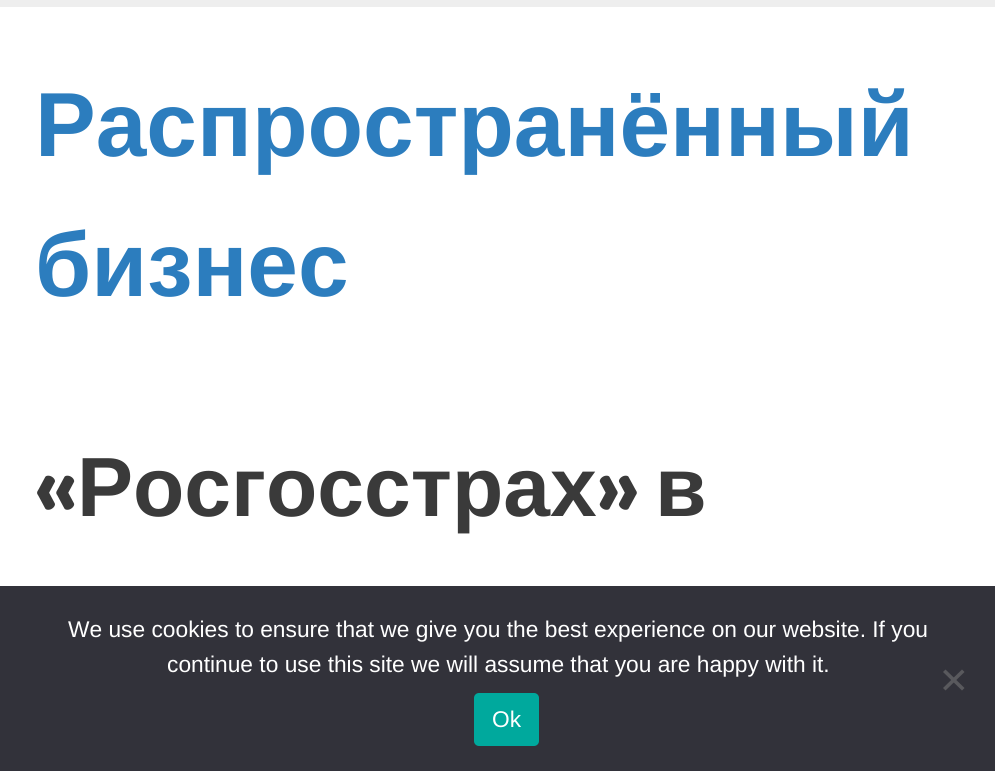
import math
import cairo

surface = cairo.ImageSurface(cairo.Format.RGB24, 995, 771)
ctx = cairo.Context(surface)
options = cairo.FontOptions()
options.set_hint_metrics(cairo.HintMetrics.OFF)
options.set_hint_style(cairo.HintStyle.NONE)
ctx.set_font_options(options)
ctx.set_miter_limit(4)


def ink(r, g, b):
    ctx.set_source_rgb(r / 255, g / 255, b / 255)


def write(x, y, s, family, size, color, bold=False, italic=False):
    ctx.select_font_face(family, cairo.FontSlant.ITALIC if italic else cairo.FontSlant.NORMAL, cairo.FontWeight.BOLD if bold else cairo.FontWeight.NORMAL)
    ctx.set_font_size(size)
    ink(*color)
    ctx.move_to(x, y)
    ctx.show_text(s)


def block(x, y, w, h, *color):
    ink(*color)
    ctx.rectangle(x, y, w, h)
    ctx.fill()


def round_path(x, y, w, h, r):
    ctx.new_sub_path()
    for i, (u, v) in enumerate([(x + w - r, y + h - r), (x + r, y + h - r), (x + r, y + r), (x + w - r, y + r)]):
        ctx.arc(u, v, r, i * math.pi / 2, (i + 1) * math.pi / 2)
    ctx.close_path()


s1 = dict(family="Liberation Sans", size=91, color=(44, 125, 190), bold=True)
s2 = dict(family="Dosis", size=84, color=(58, 58, 58), bold=True)
s3 = dict(family="Liberation Sans", size=84, color=(58, 58, 58), bold=True)
s4 = dict(family="Liberation Sans", size=22.75, color=(255, 255, 255))

ink(255, 255, 255)
ctx.paint()
block(0, 0, 995, 7, 238, 238, 238)
write(35, 156, "Распространённый", **s1)
write(35, 296, "бизнес", **s1)
write(35, 516, "«", **s2)
write(77, 516, "Росгосстрах", **s3)
write(597, 516, "»", **s2)
write(655, 516, "в", **s3)
block(0, 586, 995, 185, 50, 50, 58)
write(68, 637, "We use cookies to ensure that we give you the best experience on our website. If you", **s4)
write(167, 672, "continue to use this site we will assume that you are happy with it.", **s4)
ink(89, 89, 93)
ctx.new_path()
ctx.move_to(962, 669.5)
ctx.line_to(964.5, 672)
ctx.line_to(945.5, 690.5)
ctx.line_to(943, 688)
ctx.close_path()
ctx.fill()
ctx.new_path()
ctx.move_to(943, 672)
ctx.line_to(945.5, 669.5)
ctx.line_to(964.5, 688)
ctx.line_to(962, 690.5)
ctx.close_path()
ctx.fill()
ink(0, 169, 157)
round_path(474, 693, 65, 53, 5)
ctx.fill()
write(492, 727, "Ok", **s4)
surface.write_to_png("screenshot.png")
